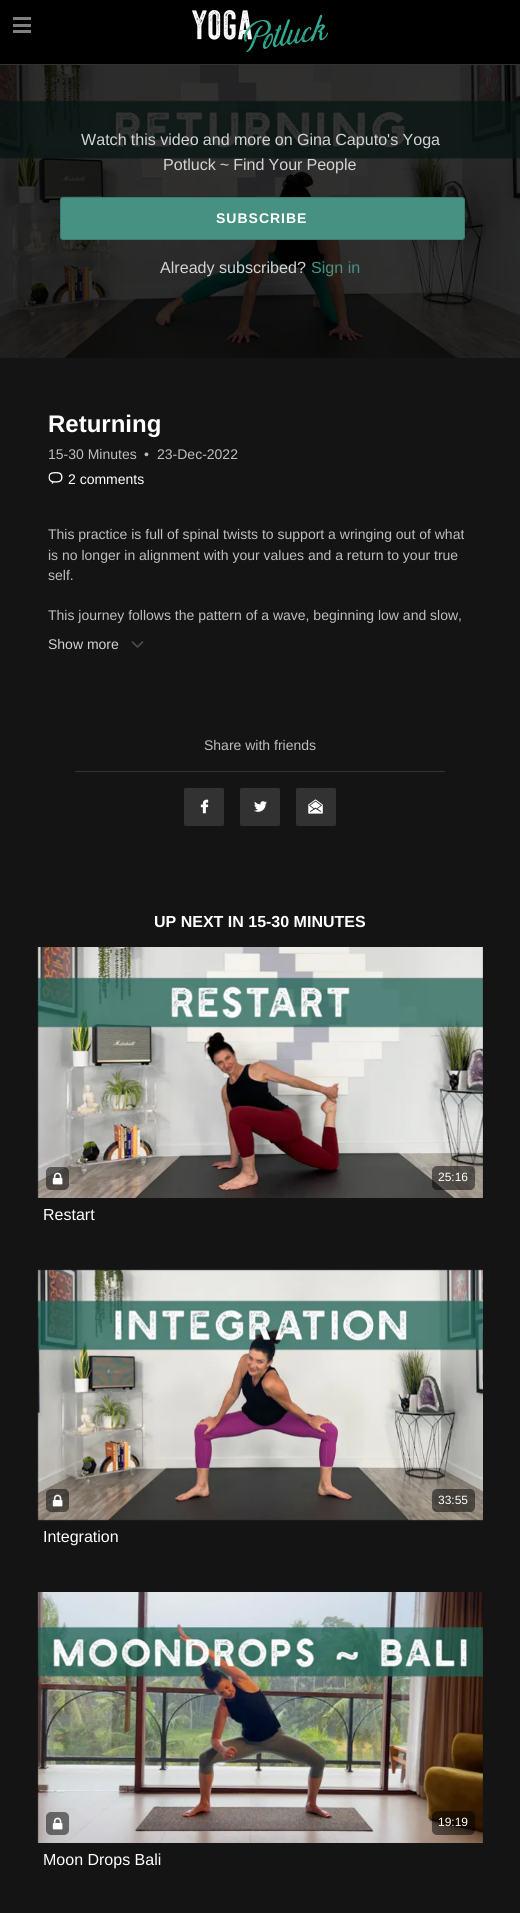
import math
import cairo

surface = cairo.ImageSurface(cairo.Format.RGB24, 520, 1913)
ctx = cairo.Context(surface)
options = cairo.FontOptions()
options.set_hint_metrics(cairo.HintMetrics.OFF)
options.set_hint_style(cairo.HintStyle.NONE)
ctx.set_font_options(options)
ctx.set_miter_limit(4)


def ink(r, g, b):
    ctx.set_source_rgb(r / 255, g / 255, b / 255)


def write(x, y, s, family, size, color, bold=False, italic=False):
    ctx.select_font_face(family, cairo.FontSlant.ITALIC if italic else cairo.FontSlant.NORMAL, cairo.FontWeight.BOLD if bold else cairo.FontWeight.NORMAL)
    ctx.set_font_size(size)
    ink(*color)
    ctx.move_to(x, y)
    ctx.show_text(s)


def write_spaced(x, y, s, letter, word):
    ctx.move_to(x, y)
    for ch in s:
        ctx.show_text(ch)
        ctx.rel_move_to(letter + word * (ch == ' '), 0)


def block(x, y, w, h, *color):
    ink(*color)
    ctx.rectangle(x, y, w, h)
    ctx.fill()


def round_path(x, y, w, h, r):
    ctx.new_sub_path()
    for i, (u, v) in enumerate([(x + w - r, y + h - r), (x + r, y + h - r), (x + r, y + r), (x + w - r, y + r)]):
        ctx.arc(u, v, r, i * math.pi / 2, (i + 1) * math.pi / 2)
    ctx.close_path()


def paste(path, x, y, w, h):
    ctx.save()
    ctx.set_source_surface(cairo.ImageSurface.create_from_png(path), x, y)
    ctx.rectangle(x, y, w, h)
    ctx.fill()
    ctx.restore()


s1 = dict(family="Liberation Sans", size=16.1, color=(210, 211, 211))
s2 = dict(family="Liberation Sans", size=16.1, color=(71, 145, 130))
s3 = dict(family="Liberation Sans", size=24, color=(255, 255, 255), bold=True)
s4 = dict(family="Liberation Sans", size=14, color=(190, 190, 187))
s5 = dict(family="Liberation Sans", size=14, color=(255, 255, 255))
s6 = dict(family="Liberation Sans", size=14, color=(210, 211, 211))
s7 = dict(family="Liberation Sans", size=16, color=(255, 255, 255), bold=True)
s8 = dict(family="Liberation Sans", size=12, color=(255, 255, 255))
s9 = dict(family="Liberation Sans", size=16, color=(255, 255, 255))

ink(20, 20, 20)
ctx.paint()
block(0, 0, 520, 64, 0, 0, 0)
block(0, 64, 520, 1, 50, 50, 50)
block(13, 17, 18, 3, 128, 128, 128)
block(13, 24, 18, 3, 128, 128, 128)
block(13, 30, 18, 3, 128, 128, 128)
paste("pic1.png", 192, 10, 136, 42)
paste("pic2.png", 0, 65, 520, 293)
ctx.select_font_face("Liberation Sans")
ctx.set_font_size(16.1)
ink(210, 211, 211)
write_spaced(81, 145, "Watch this video and more on Gina Caputo's Yoga", 0, -0.25)
write_spaced(163, 170, "Potluck ~ Find Your People", 0, -0.5)
ink(71, 145, 130)
round_path(60.5, 197.5, 404, 42, 2.5)
ctx.fill_preserve()
ink(60, 123, 111)
ctx.set_line_width(1)
ctx.stroke()
ctx.select_font_face("Liberation Sans", cairo.FontSlant.NORMAL, cairo.FontWeight.BOLD)
ctx.set_font_size(14)
ink(255, 255, 255)
write_spaced(216, 223, "SUBSCRIBE", 1, 0)
write(160, 273, "Already subscribed?", **s1)
write(311, 273, "Sign in", **s2)
write(48, 432, "Returning", **s3)
write(48, 459, "15-30 Minutes", **s4)
write(144, 459, "•", **s4)
write(157, 459, "23-Dec-2022", **s4)
paste("pic3.png", 48, 472, 15, 13)
write(68, 484, "2 comments", **s5)
write(48, 539, "This practice is full of spinal twists to support a wringing out of what", **s4)
write(48, 560, "is no longer in alignment with your values and a return to your true", **s4)
write(48, 580, "self.", **s4)
write(48, 620, "This journey follows the pattern of a wave, beginning low and slow,", **s4)
write(48, 649, "Show more", **s6)
paste("pic4.png", 131, 641, 13, 7)
block(75, 771, 370, 1, 50, 50, 50)
write(204, 750, "Share with friends", **s4)
ink(50, 50, 50)
round_path(183, 787, 42, 40, 3)
ctx.fill()
paste("pic5.png", 200, 799, 9, 15)
round_path(183.5, 787.5, 41, 39, 2.5)
ink(20, 20, 20)
ctx.stroke()
ink(50, 50, 50)
round_path(239, 787, 42, 40, 3)
ctx.fill()
paste("pic6.png", 254, 801, 13, 11)
round_path(239.5, 787.5, 41, 39, 2.5)
ink(20, 20, 20)
ctx.stroke()
ink(50, 50, 50)
round_path(295, 787, 42, 40, 3)
ctx.fill()
paste("pic7.png", 308, 799, 15, 15)
round_path(295.5, 787.5, 41, 39, 2.5)
ink(20, 20, 20)
ctx.stroke()
write(154, 927, "UP NEXT IN 15-30 MINUTES", **s7)
paste("pic8.png", 37, 947, 446, 251)
ctx.set_source_rgba(0, 0, 0, 0.5)
round_path(46, 1167, 23, 23, 5)
ctx.fill()
paste("pic9.png", 52, 1172, 11, 13)
round_path(432, 1166, 43, 24, 5)
ctx.fill()
write(438, 1181, "25:16", **s8)
write(43, 1220, "Restart", **s9)
paste("pic10.png", 37, 1269, 446, 252)
ctx.set_source_rgba(0, 0, 0, 0.5)
round_path(46, 1489, 23, 23, 5)
ctx.fill()
paste("pic11.png", 52, 1494, 11, 13)
round_path(432, 1489, 43, 23, 5)
ctx.fill()
write(438, 1504, "33:55", **s8)
write(43, 1542, "Integration", **s9)
paste("pic12.png", 37, 1592, 446, 251)
ctx.set_source_rgba(0, 0, 0, 0.5)
round_path(46, 1812, 23, 23, 5)
ctx.fill()
paste("pic13.png", 52, 1817, 11, 13)
round_path(432, 1811, 43, 24, 5)
ctx.fill()
write(438, 1826, "19:19", **s8)
write(43, 1865, "Moon Drops Bali", **s9)
surface.write_to_png("screenshot.png")
